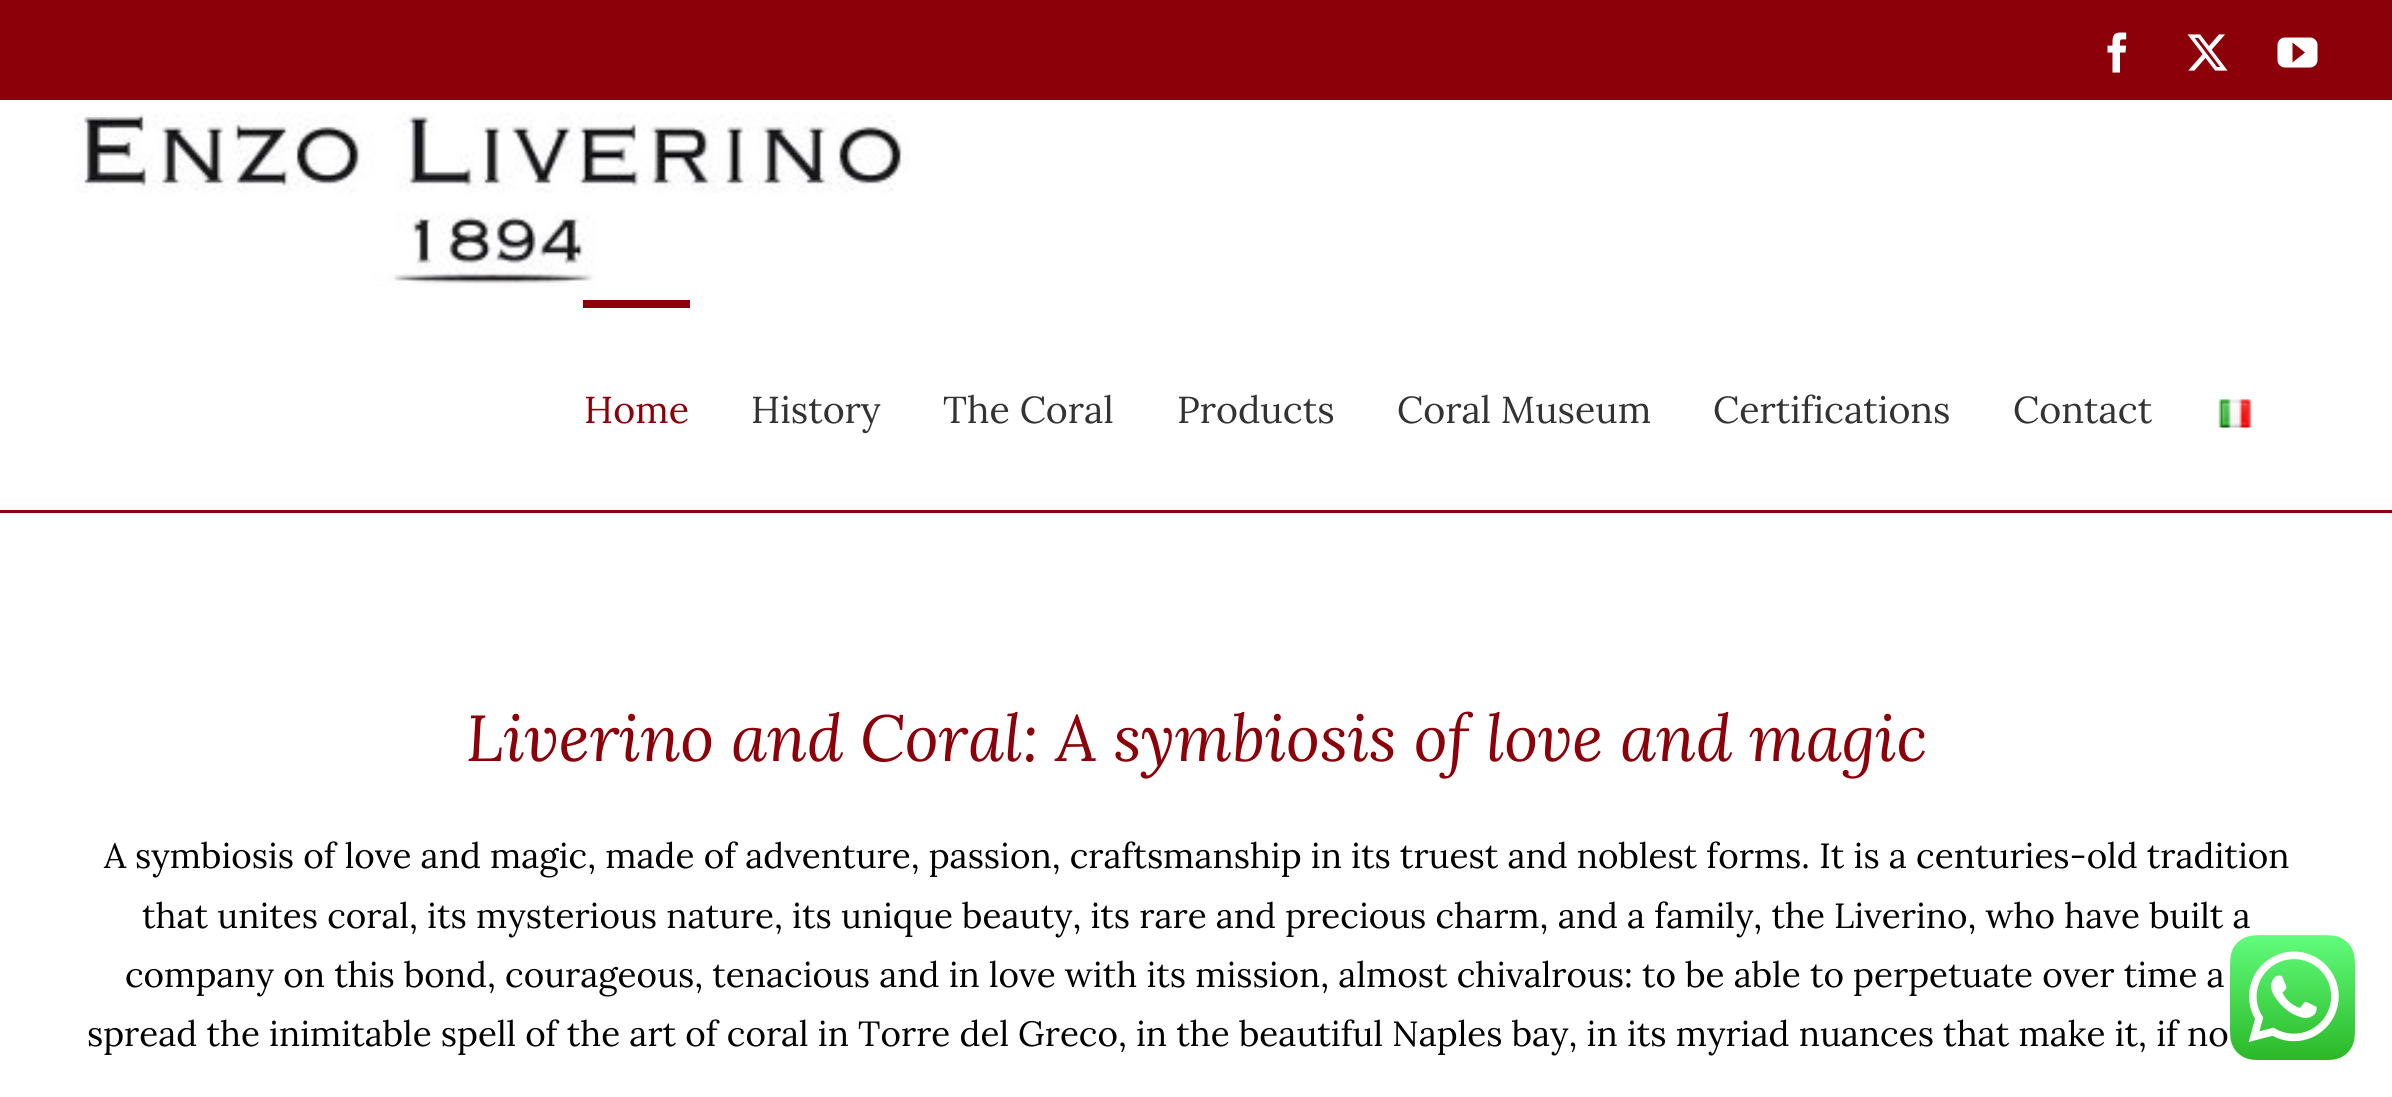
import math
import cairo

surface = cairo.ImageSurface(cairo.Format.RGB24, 2392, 1097)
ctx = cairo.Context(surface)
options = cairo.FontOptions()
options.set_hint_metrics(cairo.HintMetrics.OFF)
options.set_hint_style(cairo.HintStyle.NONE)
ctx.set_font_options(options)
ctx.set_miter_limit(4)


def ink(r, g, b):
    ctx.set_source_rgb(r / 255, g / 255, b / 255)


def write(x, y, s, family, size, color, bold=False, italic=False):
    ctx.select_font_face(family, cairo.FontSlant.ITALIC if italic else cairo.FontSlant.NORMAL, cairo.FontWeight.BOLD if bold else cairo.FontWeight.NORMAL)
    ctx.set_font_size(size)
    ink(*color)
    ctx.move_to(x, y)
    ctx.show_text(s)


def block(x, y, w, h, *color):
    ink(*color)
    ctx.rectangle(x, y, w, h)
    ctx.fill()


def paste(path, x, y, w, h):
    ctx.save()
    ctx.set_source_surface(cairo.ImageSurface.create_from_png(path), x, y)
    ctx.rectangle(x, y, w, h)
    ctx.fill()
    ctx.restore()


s1 = dict(family="Lora", size=37.5, color=(140, 0, 9))
s2 = dict(family="Lora", size=37.5, color=(51, 51, 51))
s3 = dict(family="Lora", size=65, color=(140, 0, 9), italic=True)
s4 = dict(family="Lora", size=35, color=(0, 0, 0))

ink(255, 255, 255)
ctx.paint()
block(0, 0, 2392, 100, 140, 0, 9)
paste("pic1.png", 2107, 32, 20, 41)
paste("pic2.png", 2187, 34, 41, 37)
paste("pic3.png", 2277, 37, 41, 31)
block(0, 510, 2392, 3, 140, 0, 9)
paste("pic4.png", 75, 112, 835, 175)
block(583, 300, 107, 8, 140, 0, 9)
write(584, 423, "Home", **s1)
write(751, 423, "History", **s2)
write(943, 423, "The Coral", **s2)
write(1177, 423, "Products", **s2)
write(1397, 423, "Coral Museum", **s2)
write(1713, 423, "Certifications", **s2)
write(2013, 423, "Contact", **s2)
paste("pic5.png", 2218, 399, 34, 29)
write(466, 761, "Liverino and Coral: A symbiosis of love and magic", **s3)
write(104, 868, "A symbiosis of love and magic, made of adventure, passion, craftsmanship in its truest and noblest forms. It is a centuries-old tradition", **s4)
write(142, 928, "that unites coral, its mysterious nature, its unique beauty, its rare and precious charm, and a family, the Liverino, who have built a", **s4)
write(125, 987, "company on this bond, courageous, tenacious and in love with its mission, almost chivalrous: to be able to perpetuate over time a", **s4)
write(87, 1046, "spread the inimitable spell of the art of coral in Torre del Greco, in the beautiful Naples bay, in its myriad nuances that make it, if no", **s4)
paste("pic6.png", 2230, 935, 125, 125)
surface.write_to_png("screenshot.png")
